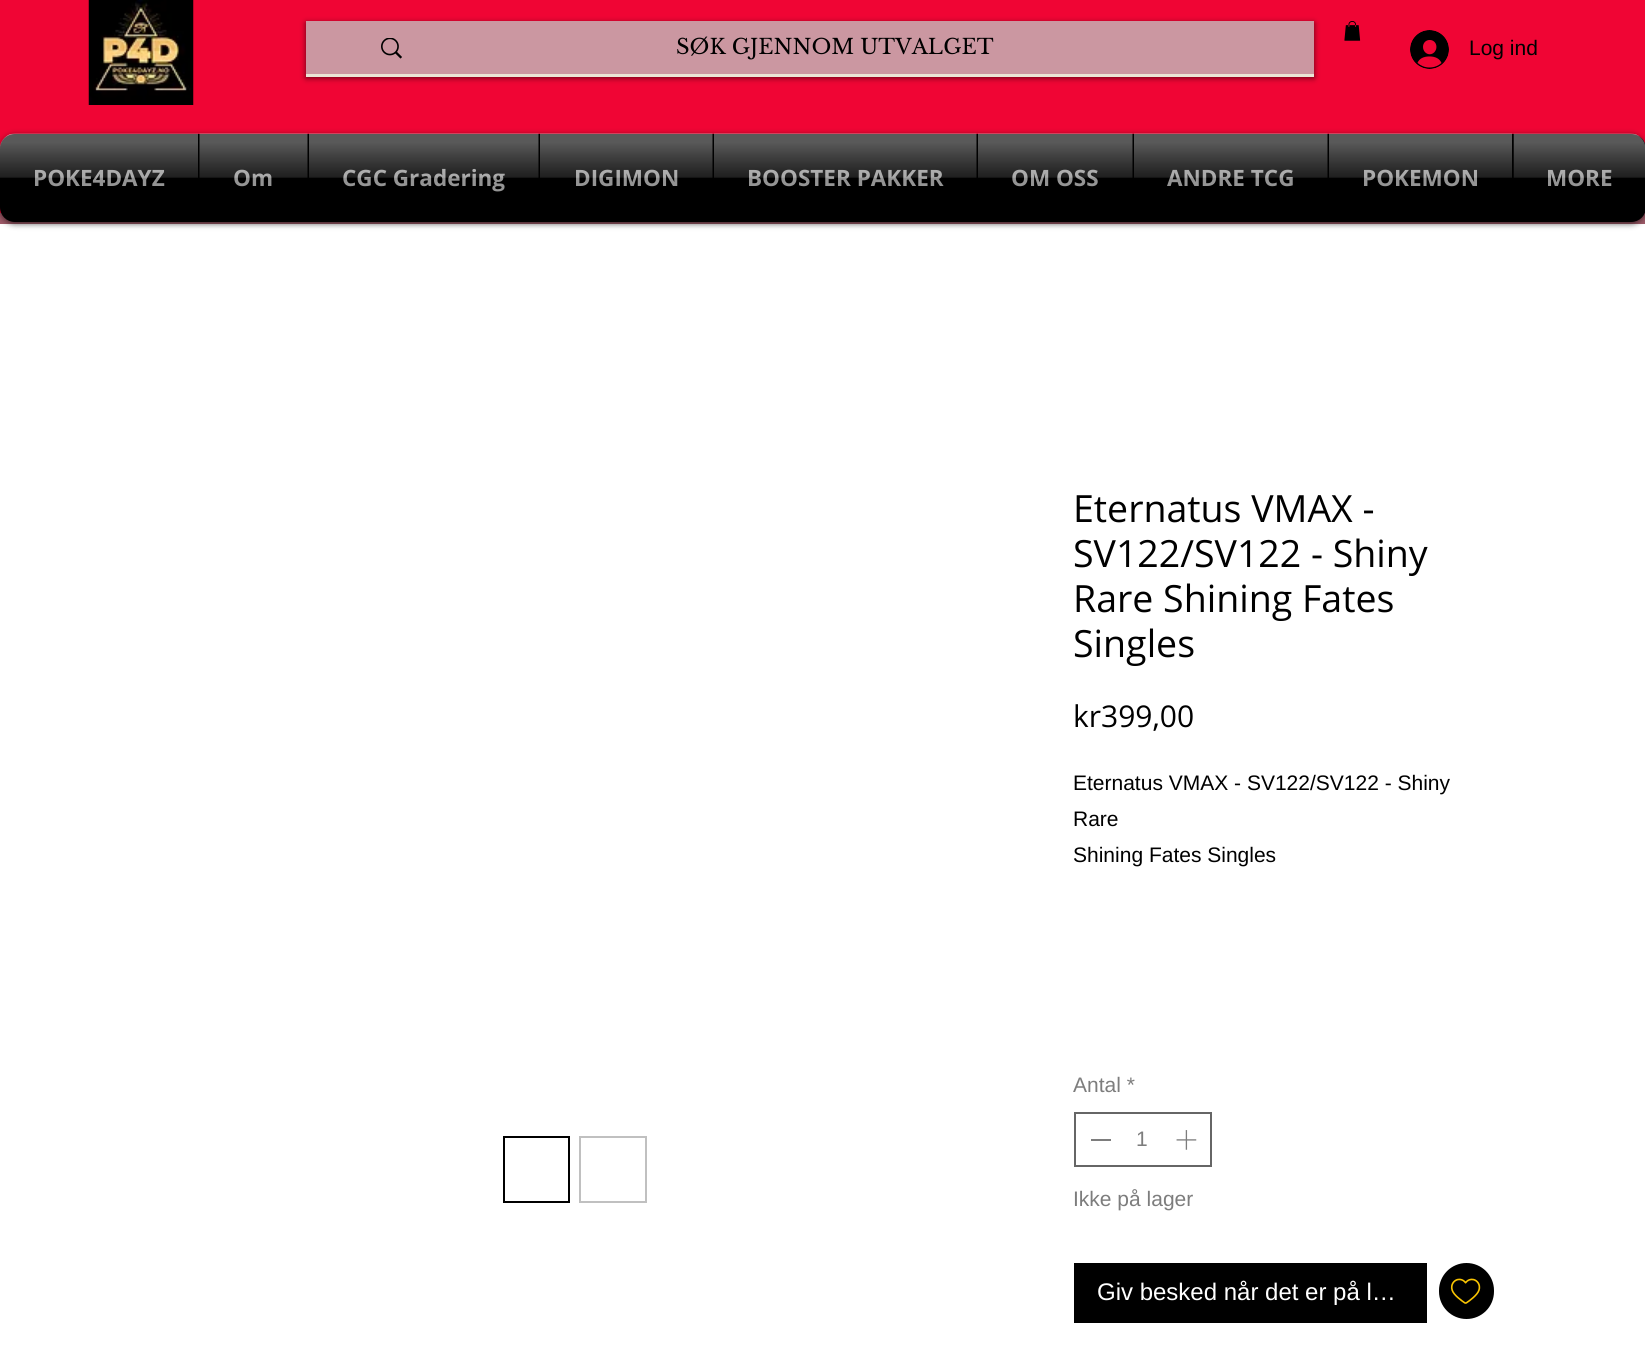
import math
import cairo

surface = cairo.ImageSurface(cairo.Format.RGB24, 1645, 1362)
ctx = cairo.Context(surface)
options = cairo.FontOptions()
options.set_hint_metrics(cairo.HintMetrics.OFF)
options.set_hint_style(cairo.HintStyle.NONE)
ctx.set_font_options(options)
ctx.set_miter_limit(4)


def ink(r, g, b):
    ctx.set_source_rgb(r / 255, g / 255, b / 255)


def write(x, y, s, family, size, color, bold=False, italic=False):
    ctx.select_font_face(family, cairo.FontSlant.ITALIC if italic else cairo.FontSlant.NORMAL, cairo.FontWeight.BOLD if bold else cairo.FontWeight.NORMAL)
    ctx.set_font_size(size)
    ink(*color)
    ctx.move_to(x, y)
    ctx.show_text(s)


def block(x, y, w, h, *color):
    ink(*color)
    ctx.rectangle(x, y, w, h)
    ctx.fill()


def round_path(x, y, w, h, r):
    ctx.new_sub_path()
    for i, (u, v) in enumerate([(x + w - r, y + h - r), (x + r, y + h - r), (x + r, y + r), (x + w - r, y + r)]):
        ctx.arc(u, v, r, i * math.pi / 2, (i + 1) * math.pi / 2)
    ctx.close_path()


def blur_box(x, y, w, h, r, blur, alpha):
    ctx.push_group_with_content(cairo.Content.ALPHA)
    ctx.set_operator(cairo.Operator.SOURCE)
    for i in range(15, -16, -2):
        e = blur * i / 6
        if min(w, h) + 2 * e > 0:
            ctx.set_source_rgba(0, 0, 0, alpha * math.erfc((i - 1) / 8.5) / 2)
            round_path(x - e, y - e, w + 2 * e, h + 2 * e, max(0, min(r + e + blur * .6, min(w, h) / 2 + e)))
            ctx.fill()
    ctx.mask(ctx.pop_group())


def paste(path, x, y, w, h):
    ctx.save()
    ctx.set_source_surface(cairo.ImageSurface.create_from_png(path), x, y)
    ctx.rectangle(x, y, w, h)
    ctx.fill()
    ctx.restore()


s1 = dict(family="Libre Baskerville", size=21, color=(0, 0, 0))
s2 = dict(family="Liberation Sans", size=21, color=(0, 0, 0))
s3 = dict(family="Open Sans", size=22.5, color=(158, 158, 158), bold=True)
s4 = dict(family="Open Sans", size=37.5, color=(0, 0, 0))
s5 = dict(family="Open Sans", size=30, color=(0, 0, 0))
s6 = dict(family="Liberation Sans", size=21, color=(125, 125, 125))
s7 = dict(family="Liberation Sans", size=24, color=(255, 255, 255))

ink(255, 255, 255)
ctx.paint()
block(0, 0, 1645, 213, 240, 5, 52)
block(0, 213, 1645, 11, 158, 90, 104)
paste("pic1.png", 88, 0, 106, 105)
paste("pic2.png", 1344, 21, 17, 20)
ink(0, 0, 0)
blur_box(306, 23, 1008, 55, 0, 3, 0.6)
block(306, 74, 1008, 3, 235, 229, 214)
block(306, 21, 1008, 53, 203, 151, 161)
paste("pic3.png", 381, 38, 21, 21)
write(676, 54, "SØK GJENNOM UTVALGET", **s1)
paste("pic4.png", 1410, 30, 39, 39)
write(1469, 55, "Log ind", **s2)
ink(0, 0, 0)
blur_box(0, 135, 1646, 89, 15, 3, 0.6)
paste("pic5.png", 0, 133, 1645, 16)
ink(0, 0, 0)
ctx.new_path()
ctx.move_to(15, 134)
ctx.line_to(198, 134)
ctx.line_to(198, 222)
ctx.line_to(15, 222)
ctx.curve_to(6.5, 222, 0, 215.5, 0, 207)
ctx.line_to(0, 149)
ctx.curve_to(0, 140.5, 6.5, 134, 15, 134)
ctx.close_path()
ctx.fill()
write(33, 186, "POKE4DAYZ", **s3)
paste("pic6.png", 0, 133, 198, 53)
block(198, 134, 1314, 88, 0, 0, 0)
write(233, 186, "Om", **s3)
paste("pic7.png", 199, 133, 109, 53)
write(342, 186, "CGC Gradering", **s3)
paste("pic8.png", 309, 133, 230, 58)
write(574, 186, "DIGIMON", **s3)
paste("pic9.png", 540, 133, 173, 53)
write(747, 186, "BOOSTER PAKKER", **s3)
paste("pic10.png", 714, 133, 263, 53)
write(1011, 186, "OM OSS", **s3)
paste("pic11.png", 978, 133, 155, 53)
write(1167, 186, "ANDRE TCG", **s3)
paste("pic12.png", 1134, 133, 194, 53)
write(1362, 186, "POKEMON", **s3)
paste("pic13.png", 1329, 133, 183, 53)
ink(0, 0, 0)
ctx.new_path()
ctx.move_to(1512, 134)
ctx.line_to(1631, 134)
ctx.curve_to(1639.5, 134, 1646, 140.5, 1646, 149)
ctx.line_to(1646, 207)
ctx.curve_to(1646, 215.5, 1639.5, 222, 1631, 222)
ctx.line_to(1512, 222)
ctx.close_path()
ctx.fill()
write(1546, 186, "MORE", **s3)
paste("pic14.png", 1513, 133, 132, 53)
ctx.rectangle(504, 1137, 65, 65)
ink(0, 0, 0)
ctx.stroke()
ctx.rectangle(580, 1137, 66, 65)
ink(192, 192, 192)
ctx.stroke()
write(1073, 522, "Eternatus VMAX -", **s4)
write(1073, 567, "SV122/SV122 - Shiny", **s4)
write(1073, 612, "Rare Shining Fates", **s4)
write(1073, 657, "Singles", **s4)
write(1073, 727, "kr399,00", **s5)
write(1073, 790, "Eternatus VMAX - SV122/SV122 - Shiny", **s2)
write(1073, 826, "Rare", **s2)
write(1073, 862, "Shining Fates Singles", **s2)
write(1073, 1092, "Antal *", **s6)
ctx.rectangle(1075, 1113, 136, 53)
ink(102, 102, 102)
ctx.stroke()
block(1091, 1139, 20, 2, 125, 125, 125)
write(1136, 1146, "1", **s6)
paste("pic15.png", 1176, 1130, 21, 20)
write(1073, 1206, "Ikke på lager", **s6)
block(1074, 1263, 353, 60, 0, 0, 0)
write(1097, 1300, "Giv besked når det er på l…", **s7)
ink(0, 0, 0)
round_path(1439, 1263, 55, 56, 27.5)
ctx.fill()
paste("pic16.png", 1450, 1278, 31, 26)
surface.write_to_png("screenshot.png")
